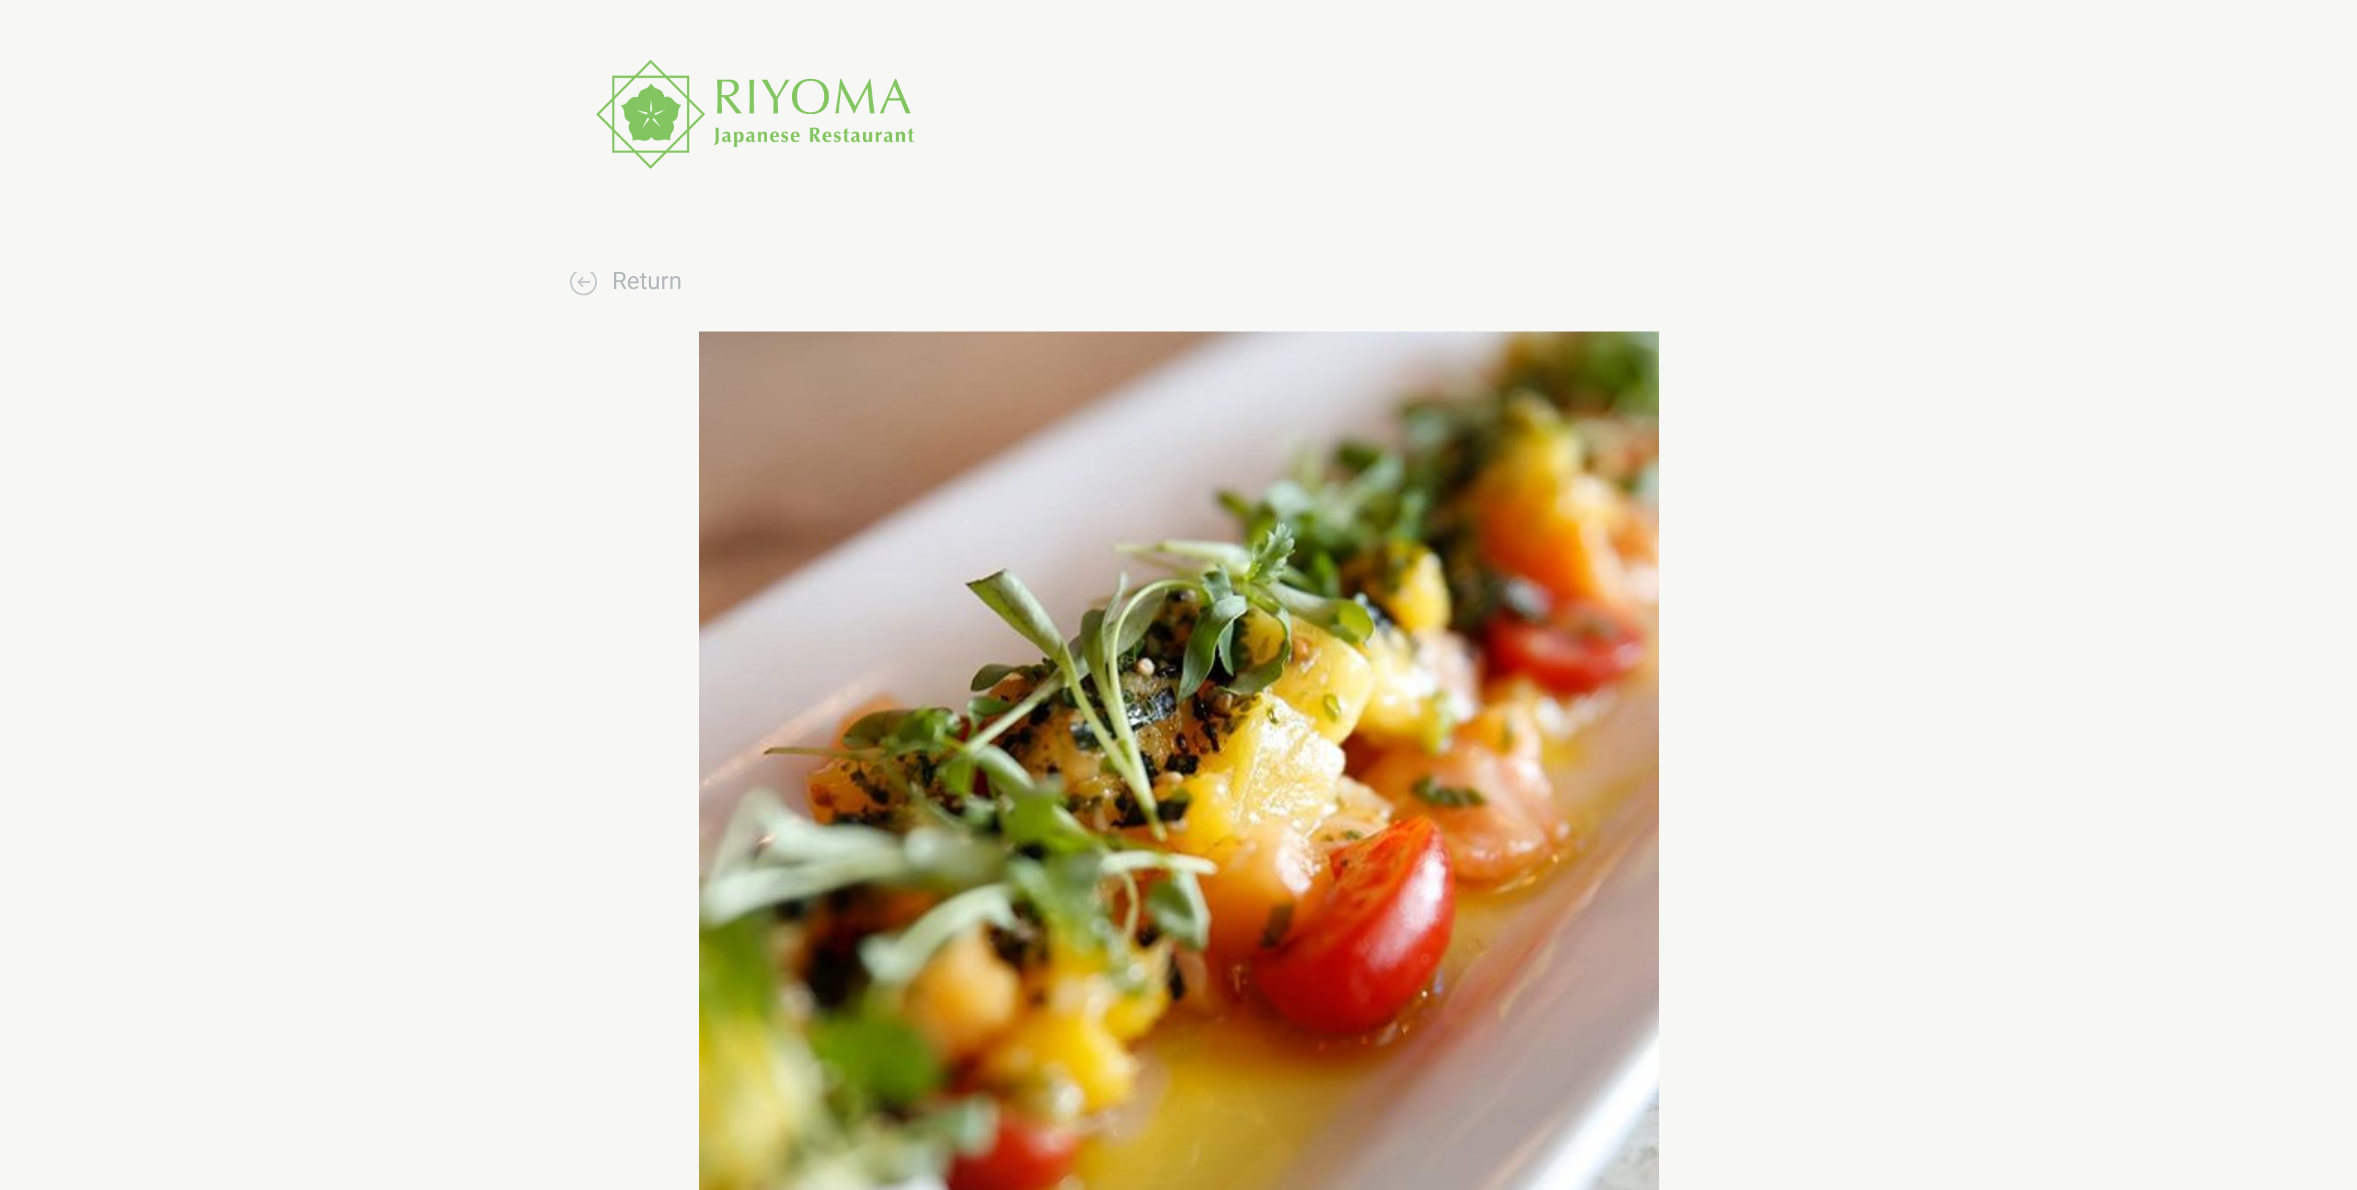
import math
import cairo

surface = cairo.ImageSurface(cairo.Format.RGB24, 2357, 1190)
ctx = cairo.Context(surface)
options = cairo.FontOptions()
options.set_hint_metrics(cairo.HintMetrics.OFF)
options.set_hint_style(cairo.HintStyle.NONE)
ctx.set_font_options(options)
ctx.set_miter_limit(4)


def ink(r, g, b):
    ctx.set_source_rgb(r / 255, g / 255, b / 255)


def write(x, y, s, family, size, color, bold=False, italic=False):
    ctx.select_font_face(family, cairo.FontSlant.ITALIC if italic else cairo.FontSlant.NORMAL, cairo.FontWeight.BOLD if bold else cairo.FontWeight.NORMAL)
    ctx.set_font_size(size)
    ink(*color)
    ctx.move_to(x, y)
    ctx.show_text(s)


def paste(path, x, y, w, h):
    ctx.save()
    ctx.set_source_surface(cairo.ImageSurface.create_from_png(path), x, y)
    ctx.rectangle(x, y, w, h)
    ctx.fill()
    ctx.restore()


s1 = dict(family="Roboto", size=24, color=(177, 183, 186))

ink(247, 248, 246)
ctx.paint()
paste("pic1.png", 596, 59, 319, 110)
paste("pic2.png", 570, 272, 27, 24)
write(612, 289, "Return", **s1)
paste("pic3.png", 699, 331, 960, 859)
surface.write_to_png("screenshot.png")
